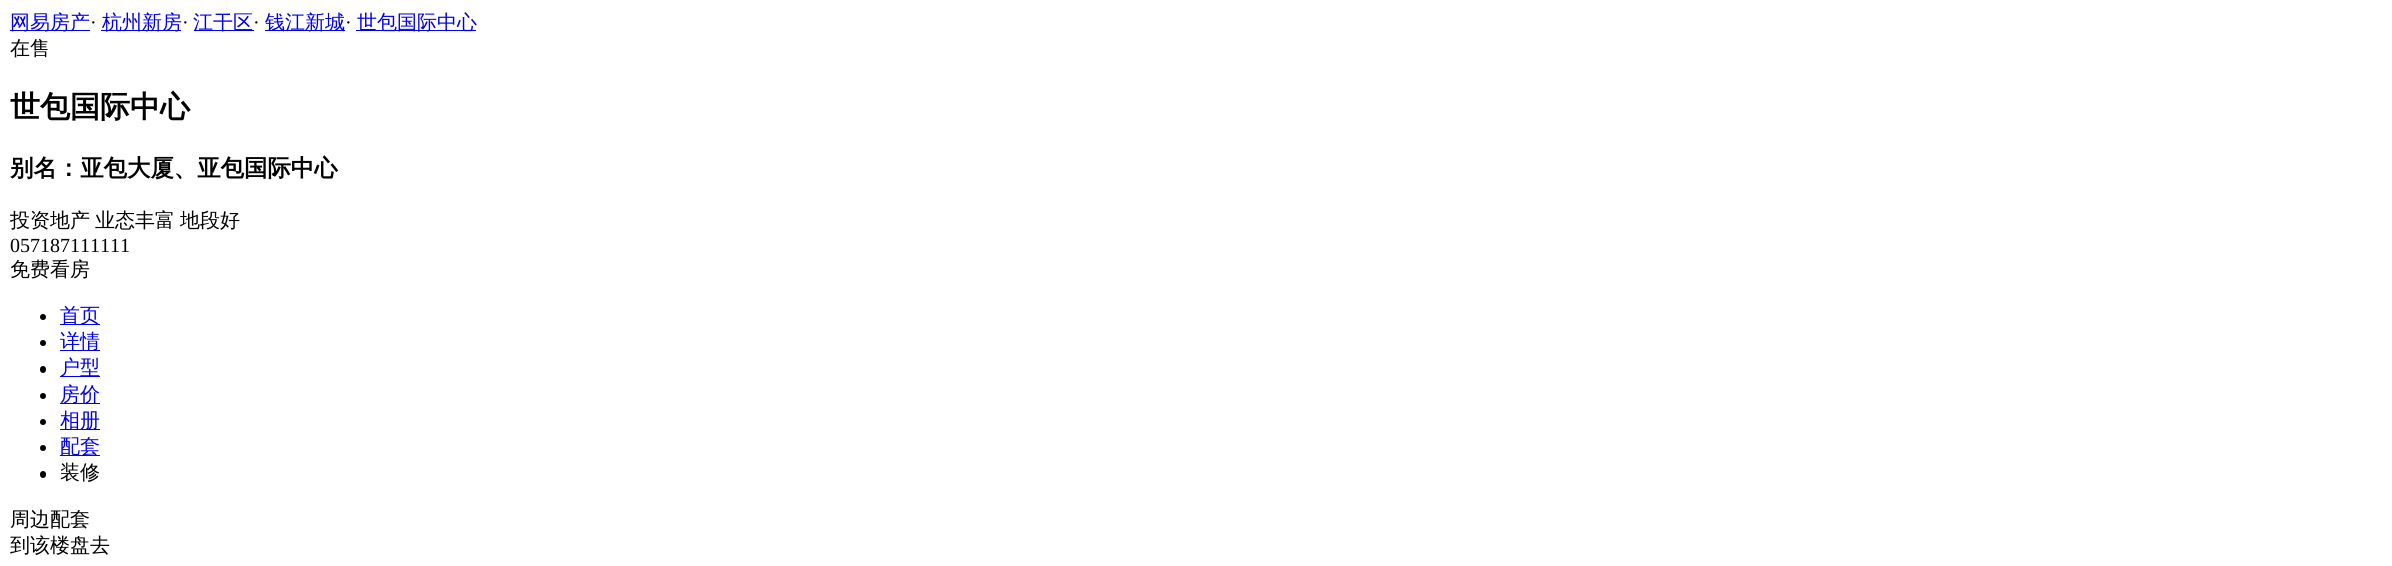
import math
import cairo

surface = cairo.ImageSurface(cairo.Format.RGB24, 2392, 566)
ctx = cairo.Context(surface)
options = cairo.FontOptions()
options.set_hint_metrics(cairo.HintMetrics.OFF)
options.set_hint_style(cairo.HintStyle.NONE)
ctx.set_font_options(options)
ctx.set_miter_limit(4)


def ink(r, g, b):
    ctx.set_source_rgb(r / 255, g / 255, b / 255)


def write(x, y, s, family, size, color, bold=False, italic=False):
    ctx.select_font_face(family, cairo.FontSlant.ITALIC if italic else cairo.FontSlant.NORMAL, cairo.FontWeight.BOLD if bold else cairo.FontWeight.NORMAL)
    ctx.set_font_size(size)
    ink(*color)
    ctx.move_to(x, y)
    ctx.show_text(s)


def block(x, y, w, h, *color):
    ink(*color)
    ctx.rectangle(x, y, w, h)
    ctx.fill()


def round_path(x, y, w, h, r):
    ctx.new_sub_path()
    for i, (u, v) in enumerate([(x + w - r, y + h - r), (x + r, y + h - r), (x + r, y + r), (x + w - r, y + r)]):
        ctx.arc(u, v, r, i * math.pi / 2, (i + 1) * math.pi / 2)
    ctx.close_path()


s1 = dict(family="WenQuanYi Zen Hei Medium", size=20, color=(0, 0, 238))
s2 = dict(family="Liberation Serif", size=20, color=(0, 0, 0))
s3 = dict(family="WenQuanYi Zen Hei Medium", size=20, color=(0, 0, 0))
s4 = dict(family="WenQuanYi Zen Hei", size=30, color=(0, 0, 0), bold=True)
s5 = dict(family="WenQuanYi Zen Hei", size=23.4, color=(0, 0, 0), bold=True)

ink(255, 255, 255)
ctx.paint()
block(10, 30, 80, 1, 0, 0, 238)
write(10, 29, "网易房产", **s1)
write(90, 29, "·", **s2)
block(101, 30, 80, 1, 0, 0, 238)
write(102, 29, "杭州新房", **s1)
write(182, 29, "·", **s2)
block(194, 30, 60, 1, 0, 0, 238)
write(193, 29, "江干区", **s1)
write(253, 29, "·", **s2)
block(265, 30, 80, 1, 0, 0, 238)
write(265, 29, "钱江新城", **s1)
write(345, 29, "·", **s2)
block(356, 30, 120, 1, 0, 0, 238)
write(357, 29, "世包国际中心", **s1)
write(10, 55, "在售", **s3)
write(10, 117, "世包国际中心", **s4)
write(10, 176, "别名：亚包大厦、亚包国际中心", **s5)
write(10, 227, "投资地产", **s3)
write(95, 227, "业态丰富", **s3)
write(180, 227, "地段好", **s3)
write(10, 252, "057187111111", **s2)
write(10, 276, "免费看房", **s3)
ctx.new_path()
ctx.arc(43, 317, 3, 0, 2 * math.pi)
ctx.fill()
block(60, 324, 40, 1, 0, 0, 238)
write(60, 322, "首页", **s1)
ink(0, 0, 0)
ctx.new_path()
ctx.arc(43, 343, 3, 0, 2 * math.pi)
ctx.fill()
block(60, 350, 40, 1, 0, 0, 238)
write(60, 348, "详情", **s1)
ink(0, 0, 0)
round_path(40, 366, 6, 7, 3)
ctx.fill()
block(60, 376, 40, 1, 0, 0, 238)
write(60, 374, "户型", **s1)
ink(0, 0, 0)
ctx.new_path()
ctx.arc(43, 396, 3, 0, 2 * math.pi)
ctx.fill()
block(60, 403, 40, 1, 0, 0, 238)
write(60, 401, "房价", **s1)
ink(0, 0, 0)
ctx.new_path()
ctx.arc(43, 422, 3, 0, 2 * math.pi)
ctx.fill()
block(60, 429, 40, 1, 0, 0, 238)
write(60, 427, "相册", **s1)
ink(0, 0, 0)
ctx.new_path()
ctx.arc(43, 448, 3, 0, 2 * math.pi)
ctx.fill()
block(60, 455, 40, 1, 0, 0, 238)
write(60, 453, "配套", **s1)
ink(0, 0, 0)
round_path(40, 471, 6, 7, 3)
ctx.fill()
write(60, 479, "装修", **s3)
write(10, 526, "周边配套", **s3)
write(10, 552, "到该楼盘去", **s3)
surface.write_to_png("screenshot.png")
